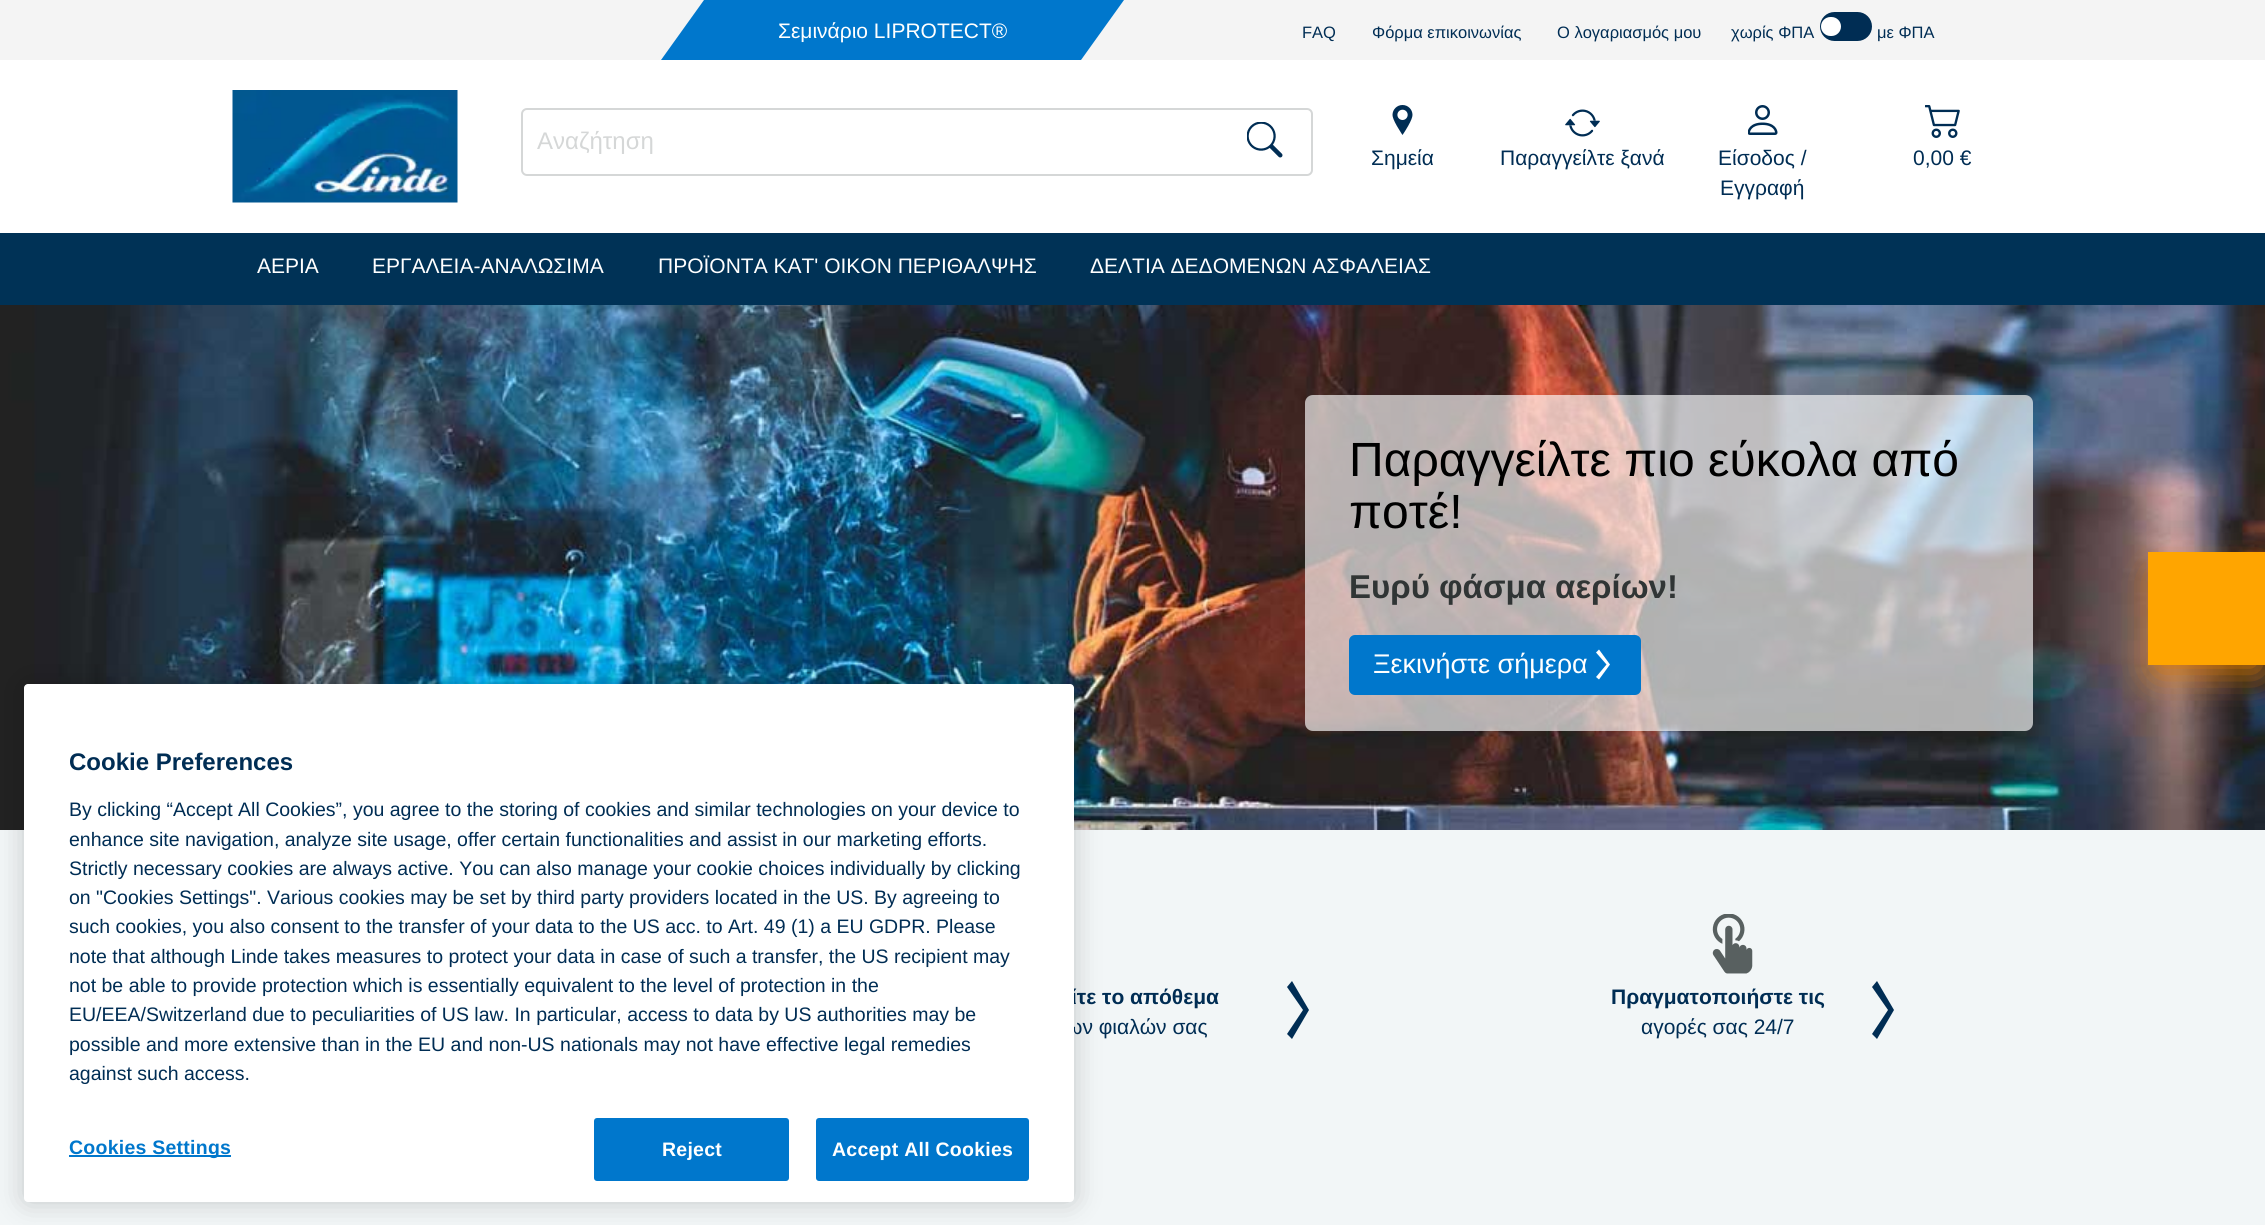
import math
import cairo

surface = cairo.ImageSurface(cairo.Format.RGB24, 2265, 1225)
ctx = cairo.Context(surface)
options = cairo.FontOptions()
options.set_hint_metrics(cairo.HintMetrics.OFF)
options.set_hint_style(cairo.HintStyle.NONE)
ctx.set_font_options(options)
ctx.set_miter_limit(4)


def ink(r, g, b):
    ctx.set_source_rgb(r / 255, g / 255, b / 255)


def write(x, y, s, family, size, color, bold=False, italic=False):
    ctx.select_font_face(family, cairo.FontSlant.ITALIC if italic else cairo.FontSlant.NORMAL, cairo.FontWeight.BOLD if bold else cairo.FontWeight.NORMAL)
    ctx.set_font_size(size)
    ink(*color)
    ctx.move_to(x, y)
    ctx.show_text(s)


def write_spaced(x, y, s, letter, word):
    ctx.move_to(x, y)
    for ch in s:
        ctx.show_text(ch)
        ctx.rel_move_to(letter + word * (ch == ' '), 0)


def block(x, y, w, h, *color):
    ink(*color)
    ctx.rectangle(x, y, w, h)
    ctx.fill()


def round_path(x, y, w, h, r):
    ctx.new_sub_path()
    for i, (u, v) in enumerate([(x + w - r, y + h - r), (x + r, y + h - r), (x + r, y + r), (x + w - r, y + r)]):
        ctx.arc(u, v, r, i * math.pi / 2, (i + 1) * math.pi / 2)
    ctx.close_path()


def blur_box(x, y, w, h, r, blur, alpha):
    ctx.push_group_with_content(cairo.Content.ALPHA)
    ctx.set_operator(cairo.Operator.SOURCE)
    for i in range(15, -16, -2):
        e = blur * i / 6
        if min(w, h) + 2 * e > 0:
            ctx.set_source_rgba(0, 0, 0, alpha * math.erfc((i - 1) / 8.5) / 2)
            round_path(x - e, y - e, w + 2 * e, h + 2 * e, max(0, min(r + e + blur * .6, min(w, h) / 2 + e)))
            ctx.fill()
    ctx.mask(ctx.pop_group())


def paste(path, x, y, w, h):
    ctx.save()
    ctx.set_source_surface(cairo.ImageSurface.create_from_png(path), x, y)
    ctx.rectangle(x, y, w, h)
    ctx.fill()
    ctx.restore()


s1 = dict(family="Liberation Sans", size=21, color=(255, 255, 255))
s2 = dict(family="Liberation Sans", size=16.5, color=(0, 45, 84))
s3 = dict(family="Liberation Sans", size=24, color=(213, 215, 215))
s4 = dict(family="Liberation Sans", size=21, color=(0, 45, 84))
s5 = dict(family="Liberation Sans", size=48, color=(0, 0, 0))
s6 = dict(family="Liberation Sans", size=33, color=(48, 53, 53), bold=True)
s7 = dict(family="Liberation Sans", size=27, color=(255, 255, 255))
s8 = dict(family="Liberation Sans", size=21, color=(0, 45, 84), bold=True)
s9 = dict(family="Liberation Sans", size=24, color=(0, 45, 84), bold=True)
s10 = dict(family="Liberation Sans", size=19.5, color=(0, 45, 84))

ink(255, 255, 255)
ctx.paint()
block(0, 0, 2265, 60, 244, 244, 244)
ink(0, 119, 204)
ctx.new_path()
ctx.move_to(704, 0)
ctx.line_to(1124, 0)
ctx.line_to(1081, 60)
ctx.line_to(661, 60)
ctx.close_path()
ctx.fill()
write(778, 38, "Σεμινάριο LIPROTECT®", **s1)
write(1302, 38, "FAQ", **s2)
write(1372, 38, "Φόρμα επικοινωνίας", **s2)
write(1557, 38, "Ο λογαριασμός μου", **s2)
write(1731, 38, "χωρίς ΦΠΑ", **s2)
round_path(1821.5, 13.5, 49, 26, 13)
ctx.fill_preserve()
ctx.set_line_width(3)
ctx.stroke()
ink(255, 255, 255)
round_path(1821, 17, 20, 19, 9.5)
ctx.fill()
write(1877, 38, "με ΦΠΑ", **s2)
paste("pic1.png", 232, 90, 226, 113)
round_path(522, 109, 790, 66, 5)
ink(213, 215, 215)
ctx.set_line_width(2)
ctx.stroke()
write(537, 149, "Αναζήτηση", **s3)
paste("pic2.png", 1247, 122, 36, 36)
paste("pic3.png", 1392, 105, 21, 30)
write(1371, 165, "Σημεία", **s4)
paste("pic4.png", 1565, 109, 35, 28)
write(1500, 165, "Παραγγείλτε ξανά", **s4)
paste("pic5.png", 1748, 105, 30, 30)
write(1718, 165, "Είσοδος /", **s4)
write(1720, 195, "Εγγραφή", **s4)
paste("pic6.png", 1925, 105, 35, 33)
write(1913, 165, "0,00 €", **s4)
block(0, 233, 2265, 72, 0, 50, 86)
write(257, 273, "ΑΕΡΙΑ", **s1)
write(372, 273, "ΕΡΓΑΛΕΙΑ-ΑΝΑΛΩΣΙΜΑ", **s1)
write(658, 273, "ΠΡΟΪΟΝΤΑ ΚΑΤ' ΟΙΚΟΝ ΠΕΡΙΘΑΛΨΗΣ", **s1)
write(1090, 273, "ΔΕΛΤΙΑ ΔΕΔΟΜΕΝΩΝ ΑΣΦΑΛΕΙΑΣ", **s1)
paste("pic7.png", 0, 305, 2265, 525)
ctx.set_source_rgba(1, 1, 1, 0.65)
round_path(1305, 395, 728, 336, 8)
ctx.fill()
write(1349, 476, "Παραγγείλτε πιο εύκολα από", **s5)
write(1349, 528, "ποτέ!", **s5)
write(1349, 598, "Ευρύ φάσμα αερίων!", **s6)
ink(0, 119, 204)
round_path(1349, 635, 292, 60, 6)
ctx.fill()
write(1373, 673, "Ξεκινήστε σήμερα", **s7)
ctx.new_path()
ctx.move_to(1599, 649.5)
ctx.line_to(1596, 652.5)
ctx.line_to(1606.5, 664.5)
ctx.line_to(1596, 677)
ctx.line_to(1599, 679.5)
ctx.line_to(1610, 664.5)
ctx.close_path()
ctx.fill()
block(0, 830, 2265, 395, 242, 246, 247)
write(1071, 1004, "ίτε το απόθεμα", **s8)
write(1066, 1034, "ων φιαλών σας", **s4)
ctx.new_path()
ctx.move_to(1292, 981)
ctx.line_to(1287, 987)
ctx.line_to(1303, 1010)
ctx.line_to(1287, 1034)
ctx.line_to(1292, 1039)
ctx.line_to(1309, 1010)
ctx.close_path()
ctx.fill()
paste("pic8.png", 1712, 914, 41, 60)
write(1611, 1004, "Πραγματοποιήστε τις", **s8)
write(1641, 1034, "αγορές σας 24/7", **s4)
ctx.new_path()
ctx.move_to(1877, 981)
ctx.line_to(1872, 987)
ctx.line_to(1888, 1010)
ctx.line_to(1872, 1034)
ctx.line_to(1877, 1039)
ctx.line_to(1894, 1010)
ctx.close_path()
ctx.fill()
ink(220, 120, 0)
blur_box(2156, 575, 105, 97, 0, 19, 1)
block(2148, 552, 117, 113, 255, 165, 0)
ink(0, 0, 0)
blur_box(24, 684, 1050, 518, 4, 13.5, 0.2)
ink(255, 255, 255)
round_path(24, 684, 1050, 518, 4)
ctx.fill()
write(69, 770, "Cookie Preferences", **s9)
write(69, 816, "By clicking “Accept All Cookies”, you agree to the storing of cookies and similar technologies on your device to", **s10)
write(69, 846, "enhance site navigation, analyze site usage, offer certain functionalities and assist in our marketing efforts.", **s10)
write(69, 875, "Strictly necessary cookies are always active. You can also manage your cookie choices individually by clicking", **s10)
write(69, 904, "on \"Cookies Settings\". Various cookies may be set by third party providers located in the US. By agreeing to", **s10)
write(69, 933, "such cookies, you also consent to the transfer of your data to the US acc. to Art. 49 (1) a EU GDPR. Please", **s10)
write(69, 963, "note that although Linde takes measures to protect your data in case of such a transfer, the US recipient may", **s10)
write(69, 992, "not be able to provide protection which is essentially equivalent to the level of protection in the", **s10)
write(69, 1021, "EU/EEA/Switzerland due to peculiarities of US law. In particular, access to data by US authorities may be", **s10)
write(69, 1051, "possible and more extensive than in the EU and non-US nationals may not have effective legal remedies", **s10)
write(69, 1080, "against such access.", **s10)
block(69, 1155, 162, 2, 0, 119, 204)
ctx.select_font_face("Liberation Sans", cairo.FontSlant.NORMAL, cairo.FontWeight.BOLD)
write_spaced(69, 1154, "Cookies Settings", 0.25, 0)
round_path(595, 1119, 193, 61, 2)
ctx.fill_preserve()
ctx.stroke()
ink(255, 255, 255)
write_spaced(662, 1156, "Reject", 0.25, 0)
ink(0, 119, 204)
round_path(817, 1119, 211, 61, 2)
ctx.fill_preserve()
ctx.stroke()
ink(255, 255, 255)
write_spaced(832, 1156, "Accept All Cookies", 0.25, 0)
surface.write_to_png("screenshot.png")
